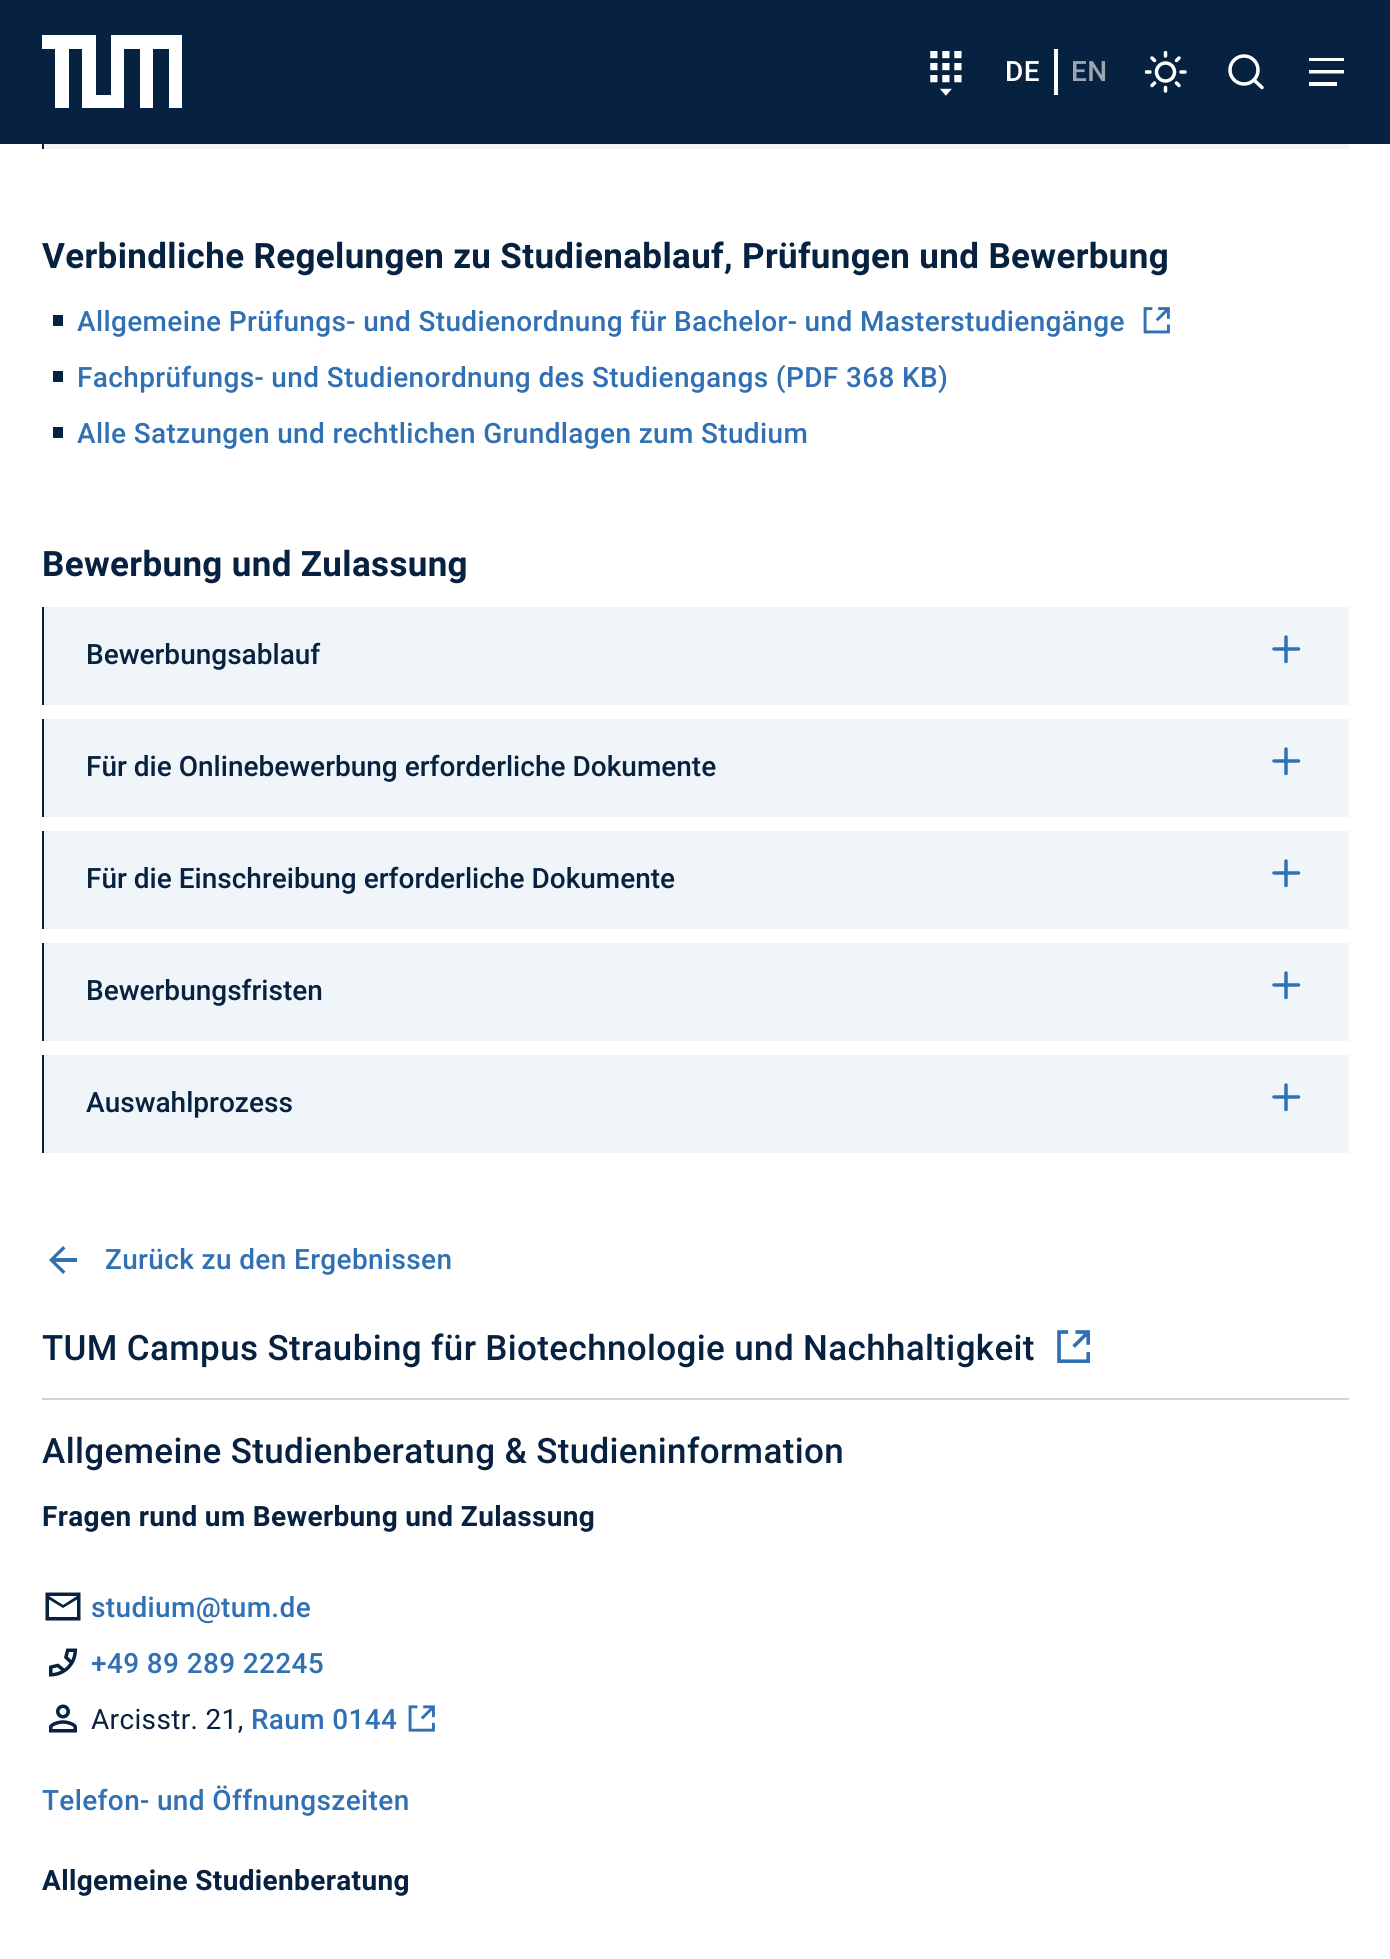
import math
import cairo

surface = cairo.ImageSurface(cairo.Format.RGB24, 1390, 1959)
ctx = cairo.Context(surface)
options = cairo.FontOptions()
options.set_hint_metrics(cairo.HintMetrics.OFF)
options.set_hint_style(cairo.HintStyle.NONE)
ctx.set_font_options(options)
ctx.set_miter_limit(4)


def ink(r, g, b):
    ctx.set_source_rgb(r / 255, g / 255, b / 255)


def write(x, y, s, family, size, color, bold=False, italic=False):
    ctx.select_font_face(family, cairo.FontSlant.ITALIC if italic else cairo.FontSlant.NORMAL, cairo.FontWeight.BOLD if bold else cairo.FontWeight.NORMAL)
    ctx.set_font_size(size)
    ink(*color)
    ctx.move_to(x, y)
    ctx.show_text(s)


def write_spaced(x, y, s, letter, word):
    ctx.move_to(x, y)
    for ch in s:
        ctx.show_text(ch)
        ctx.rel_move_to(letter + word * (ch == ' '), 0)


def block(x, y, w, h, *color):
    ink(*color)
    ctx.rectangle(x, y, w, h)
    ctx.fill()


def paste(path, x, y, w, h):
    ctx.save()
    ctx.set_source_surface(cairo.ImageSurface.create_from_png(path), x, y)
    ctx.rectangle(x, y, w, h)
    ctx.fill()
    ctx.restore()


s1 = dict(family="Roboto Medium", size=28, color=(7, 33, 64))

ink(255, 255, 255)
ctx.paint()
block(0, 0, 1390, 144, 7, 33, 64)
ink(255, 255, 255)
ctx.new_path()
ctx.move_to(96, 35)
ctx.line_to(96, 95)
ctx.line_to(111, 95)
ctx.line_to(111, 35)
ctx.line_to(182, 35)
ctx.line_to(182, 108)
ctx.line_to(169, 108)
ctx.line_to(169, 49)
ctx.line_to(153, 49)
ctx.line_to(153, 108)
ctx.line_to(140, 108)
ctx.line_to(140, 49)
ctx.line_to(124, 49)
ctx.line_to(124, 108)
ctx.line_to(82, 108)
ctx.line_to(82, 49)
ctx.line_to(69, 49)
ctx.line_to(69, 108)
ctx.line_to(55, 108)
ctx.line_to(55, 49)
ctx.line_to(42, 49)
ctx.line_to(42, 35)
ctx.close_path()
ctx.fill()
paste("pic1.png", 930, 51, 32, 45)
ctx.select_font_face("Roboto Medium")
ctx.set_font_size(28)
write_spaced(1005, 81, "DE", 0.35, 0)
block(1054, 49, 4, 46, 255, 255, 255)
ink(156, 166, 179)
write_spaced(1071, 81, "EN", 0.35, 0)
ctx.new_path()
ctx.arc(1165.5, 72, 9, 0, 2 * math.pi)
ink(255, 255, 255)
ctx.set_line_width(3.5)
ctx.stroke()
ctx.save()
ctx.rectangle(1145, 51, 42, 42)
ctx.clip()
ctx.new_path()
ctx.move_to(1165.5, 52.5)
ctx.line_to(1165.5, 56)
ctx.move_to(1165.5, 87.5)
ctx.line_to(1165.5, 91)
ctx.move_to(1152, 58)
ctx.line_to(1154.5, 60.5)
ctx.move_to(1176.5, 83)
ctx.line_to(1179, 85.5)
ctx.move_to(1146, 72)
ctx.line_to(1150, 72)
ctx.move_to(1181, 72)
ctx.line_to(1185, 72)
ctx.move_to(1152, 85.5)
ctx.line_to(1154.5, 83)
ctx.move_to(1176.5, 60.5)
ctx.line_to(1179, 58)
ctx.set_line_cap(cairo.LineCap.ROUND)
ctx.set_line_join(cairo.LineJoin.ROUND)
ctx.stroke()
ctx.restore()
ctx.arc(1244, 70, 14, 0, 2 * math.pi)
ctx.stroke()
ctx.new_path()
ctx.move_to(1262, 87.5)
ctx.line_to(1254, 80)
ctx.set_line_cap(cairo.LineCap.ROUND)
ctx.set_line_join(cairo.LineJoin.ROUND)
ctx.stroke()
ctx.new_path()
ctx.move_to(1309, 73.5)
ctx.line_to(1344, 73.5)
ctx.line_to(1344, 70)
ctx.line_to(1309, 70)
ctx.close_path()
ctx.move_to(1309, 86)
ctx.line_to(1337, 86)
ctx.line_to(1337, 82)
ctx.line_to(1309, 82)
ctx.close_path()
ctx.move_to(1309, 58)
ctx.line_to(1309, 61)
ctx.line_to(1344, 61)
ctx.line_to(1344, 58)
ctx.close_path()
ctx.fill()
block(44, 144, 1305, 5, 240, 245, 250)
block(42, 144, 2, 5, 7, 33, 64)
ctx.select_font_face("Roboto", cairo.FontSlant.NORMAL, cairo.FontWeight.BOLD)
ctx.set_font_size(35)
write_spaced(42, 268, "Verbindliche Regelungen zu Studienablauf, Prüfungen und Bewerbung", 0.35, 0)
block(53, 315, 10, 11, 7, 33, 64)
ctx.select_font_face("Roboto Medium")
ctx.set_font_size(28)
ink(48, 112, 179)
write_spaced(77, 331, "Allgemeine Prüfungs- und Studienordnung für Bachelor- und Masterstudiengänge", 0.35, 0)
paste("pic2.png", 1143, 307, 27, 27)
block(53, 371, 10, 11, 7, 33, 64)
ink(48, 112, 179)
write_spaced(77, 387, "Fachprüfungs- und Studienordnung des Studiengangs (PDF 368 KB)", 0.35, 0)
block(53, 427, 10, 11, 7, 33, 64)
ink(48, 112, 179)
write_spaced(77, 443, "Alle Satzungen und rechtlichen Grundlagen zum Studium", 0.35, 0)
ctx.select_font_face("Roboto", cairo.FontSlant.NORMAL, cairo.FontWeight.BOLD)
ctx.set_font_size(35)
ink(7, 33, 64)
write_spaced(42, 576, "Bewerbung und Zulassung", 0.35, 0)
block(44, 607, 1305, 98, 240, 245, 250)
block(42, 607, 2, 98, 7, 33, 64)
write(86, 664, "Bewerbungsablauf", **s1)
ctx.new_path()
ctx.move_to(1286, 637)
ctx.line_to(1286, 661.5)
ctx.move_to(1274, 649)
ctx.line_to(1298.5, 649)
ink(48, 112, 179)
ctx.stroke()
block(44, 719, 1305, 98, 240, 245, 250)
block(42, 719, 2, 98, 7, 33, 64)
write(86, 776, "Für die Onlinebewerbung erforderliche Dokumente", **s1)
ctx.new_path()
ctx.move_to(1286, 749)
ctx.line_to(1286, 773.5)
ctx.move_to(1274, 761)
ctx.line_to(1298.5, 761)
ink(48, 112, 179)
ctx.stroke()
block(44, 831, 1305, 98, 240, 245, 250)
block(42, 831, 2, 98, 7, 33, 64)
write(86, 888, "Für die Einschreibung erforderliche Dokumente", **s1)
ctx.new_path()
ctx.move_to(1286, 861)
ctx.line_to(1286, 885.5)
ctx.move_to(1274, 873)
ctx.line_to(1298.5, 873)
ink(48, 112, 179)
ctx.stroke()
block(44, 943, 1305, 98, 240, 245, 250)
block(42, 943, 2, 98, 7, 33, 64)
write(86, 1000, "Bewerbungsfristen", **s1)
ctx.new_path()
ctx.move_to(1286, 973)
ctx.line_to(1286, 997.5)
ctx.move_to(1274, 985)
ctx.line_to(1298.5, 985)
ink(48, 112, 179)
ctx.stroke()
block(44, 1055, 1305, 98, 240, 245, 250)
block(42, 1055, 2, 98, 7, 33, 64)
write(86, 1112, "Auswahlprozess", **s1)
ctx.new_path()
ctx.move_to(1286, 1085)
ctx.line_to(1286, 1109.5)
ctx.move_to(1274, 1097)
ctx.line_to(1298.5, 1097)
ink(48, 112, 179)
ctx.stroke()
ctx.new_path()
ctx.move_to(77, 1258)
ctx.line_to(55.5, 1258)
ctx.line_to(65.5, 1248.5)
ctx.line_to(63, 1246)
ctx.line_to(49, 1260)
ctx.line_to(63, 1274)
ctx.line_to(65.5, 1271.5)
ctx.line_to(55.5, 1262)
ctx.line_to(77, 1262)
ctx.close_path()
ctx.fill()
write_spaced(105, 1269, "Zurück zu den Ergebnissen", 0.35, 0)
block(42, 1398, 1307, 2, 205, 212, 219)
ctx.set_font_size(35)
ink(7, 33, 64)
write_spaced(42, 1360, "TUM Campus Straubing für Biotechnologie und Nachhaltigkeit", 0.35, 0)
paste("pic3.png", 1057, 1330, 34, 33)
write_spaced(42, 1463, "Allgemeine Studienberatung & Studieninformation", 0.35, 0)
ctx.select_font_face("Roboto", cairo.FontSlant.NORMAL, cairo.FontWeight.BOLD)
ctx.set_font_size(28)
write_spaced(42, 1526, "Fragen rund um Bewerbung und Zulassung", 0.35, 0)
ctx.new_path()
ctx.move_to(80.5, 1592.5)
ctx.line_to(45.5, 1592.5)
ctx.line_to(45.5, 1620.5)
ctx.line_to(80.5, 1620.5)
ctx.close_path()
ctx.move_to(77, 1617)
ctx.line_to(49, 1617)
ctx.line_to(49, 1599.5)
ctx.line_to(63, 1608)
ctx.line_to(77, 1599.5)
ctx.close_path()
ctx.move_to(63, 1605)
ctx.line_to(49, 1596)
ctx.line_to(77, 1596)
ctx.close_path()
ctx.fill()
ctx.select_font_face("Roboto Medium")
ink(48, 112, 179)
write_spaced(91, 1617, "studium@tum.de", 0.35, 0)
paste("pic4.png", 49, 1648, 28, 29)
write_spaced(91, 1673, "+49 89 289 22245", 0.35, 0)
paste("pic5.png", 49, 1704, 28, 29)
ctx.select_font_face("Roboto")
ink(7, 33, 64)
write_spaced(91, 1729, "Arcisstr. 21,", 0.35, 0)
ctx.select_font_face("Roboto Medium")
ink(48, 112, 179)
write_spaced(251, 1729, "Raum 0144", 0.35, 0)
paste("pic6.png", 408, 1705, 27, 27)
write_spaced(42, 1810, "Telefon- und Öffnungszeiten", 0.35, 0)
ctx.select_font_face("Roboto", cairo.FontSlant.NORMAL, cairo.FontWeight.BOLD)
ink(7, 33, 64)
write_spaced(42, 1890, "Allgemeine Studienberatung", 0.35, 0)
surface.write_to_png("screenshot.png")
